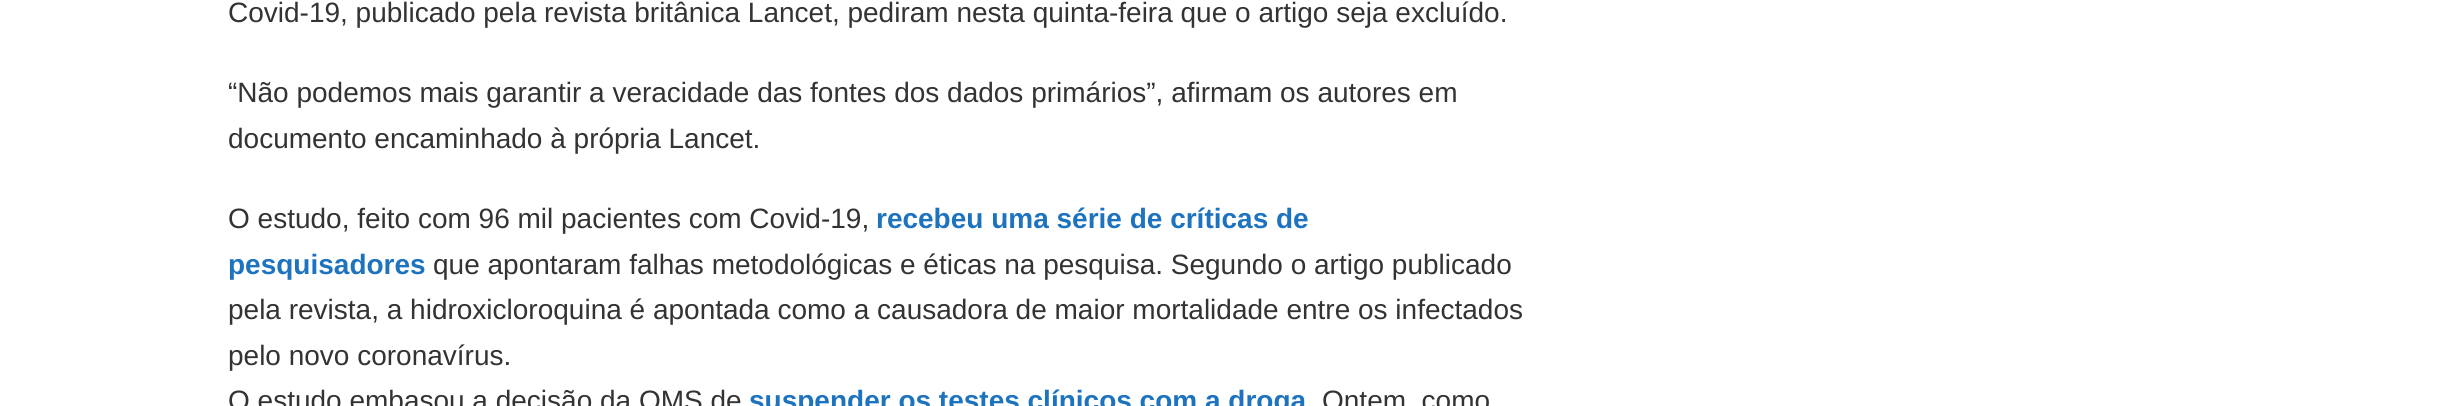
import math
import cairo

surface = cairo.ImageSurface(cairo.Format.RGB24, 2449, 406)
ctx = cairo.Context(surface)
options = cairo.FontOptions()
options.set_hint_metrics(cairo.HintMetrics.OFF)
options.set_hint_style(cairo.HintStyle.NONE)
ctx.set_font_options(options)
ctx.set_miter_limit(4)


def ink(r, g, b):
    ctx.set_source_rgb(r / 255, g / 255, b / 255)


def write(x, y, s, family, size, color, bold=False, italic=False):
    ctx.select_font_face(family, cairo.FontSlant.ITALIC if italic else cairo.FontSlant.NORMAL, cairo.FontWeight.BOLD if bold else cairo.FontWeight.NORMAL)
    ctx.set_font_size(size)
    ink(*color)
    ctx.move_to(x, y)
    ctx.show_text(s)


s1 = dict(family="Liberation Sans", size=28, color=(51, 51, 51))
s2 = dict(family="Liberation Sans", size=28, color=(30, 115, 190), bold=True)

ink(255, 255, 255)
ctx.paint()
write(228, 22, "Covid-19, publicado pela revista britânica Lancet, pediram nesta quinta-feira que o artigo seja excluído.", **s1)
write(228, 102, "“Não podemos mais garantir a veracidade das fontes dos dados primários”, afirmam os autores em", **s1)
write(228, 148, "documento encaminhado à própria Lancet.", **s1)
write(228, 228, "O estudo, feito com 96 mil pacientes com Covid-19,", **s1)
write(876, 228, "recebeu uma série de críticas de", **s2)
write(228, 274, "pesquisadores", **s2)
write(433, 274, "que apontaram falhas metodológicas e éticas na pesquisa. Segundo o artigo publicado", **s1)
write(228, 319, "pela revista, a hidroxicloroquina é apontada como a causadora de maior mortalidade entre os infectados", **s1)
write(228, 365, "pelo novo coronavírus.", **s1)
write(228, 410, "O estudo embasou a decisão da OMS de", **s1)
write(749, 410, "suspender os testes clínicos com a droga", **s2)
write(1322, 410, "Ontem, como", **s1)
surface.write_to_png("screenshot.png")
